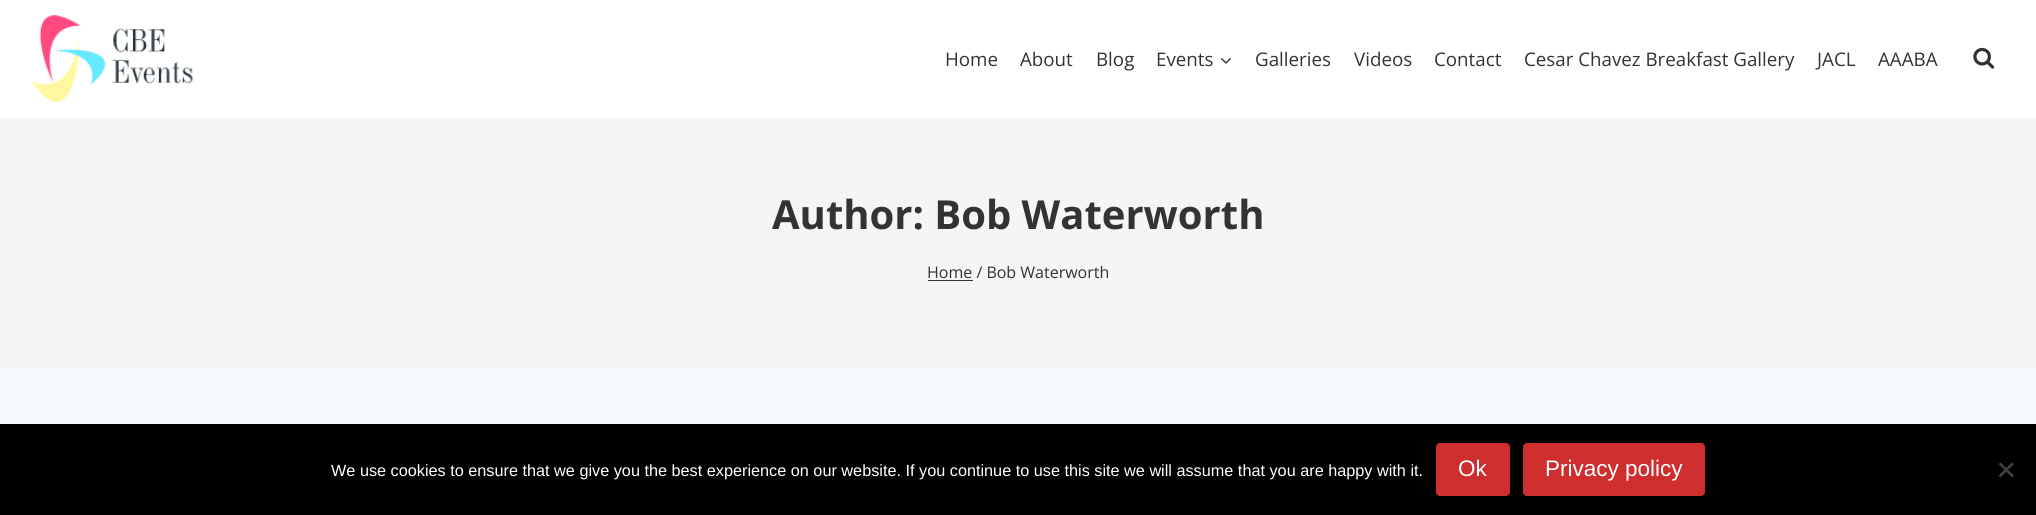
import math
import cairo

surface = cairo.ImageSurface(cairo.Format.RGB24, 2036, 515)
ctx = cairo.Context(surface)
options = cairo.FontOptions()
options.set_hint_metrics(cairo.HintMetrics.OFF)
options.set_hint_style(cairo.HintStyle.NONE)
ctx.set_font_options(options)
ctx.set_miter_limit(4)


def ink(r, g, b):
    ctx.set_source_rgb(r / 255, g / 255, b / 255)


def write(x, y, s, family, size, color, bold=False, italic=False):
    ctx.select_font_face(family, cairo.FontSlant.ITALIC if italic else cairo.FontSlant.NORMAL, cairo.FontWeight.BOLD if bold else cairo.FontWeight.NORMAL)
    ctx.set_font_size(size)
    ink(*color)
    ctx.move_to(x, y)
    ctx.show_text(s)


def block(x, y, w, h, *color):
    ink(*color)
    ctx.rectangle(x, y, w, h)
    ctx.fill()


def round_path(x, y, w, h, r):
    ctx.new_sub_path()
    for i, (u, v) in enumerate([(x + w - r, y + h - r), (x + r, y + h - r), (x + r, y + r), (x + w - r, y + r)]):
        ctx.arc(u, v, r, i * math.pi / 2, (i + 1) * math.pi / 2)
    ctx.close_path()


def paste(path, x, y, w, h):
    ctx.save()
    ctx.set_source_surface(cairo.ImageSurface.create_from_png(path), x, y)
    ctx.rectangle(x, y, w, h)
    ctx.fill()
    ctx.restore()


s1 = dict(family="Open Sans", size=18.75, color=(51, 51, 51))
s2 = dict(family="Open Sans", size=40, color=(51, 51, 51), bold=True)
s3 = dict(family="Open Sans", size=16, color=(51, 51, 51))
s4 = dict(family="Liberation Sans", size=16.25, color=(255, 255, 255))
s5 = dict(family="Liberation Sans", size=22.5, color=(255, 255, 255))

ink(247, 250, 252)
ctx.paint()
block(0, 0, 2036, 118, 255, 255, 255)
paste("pic1.png", 31, 15, 162, 88)
write(945, 66, "Home", **s1)
write(1020, 66, "About", **s1)
write(1096, 66, "Blog", **s1)
write(1156, 66, "Events", **s1)
paste("pic2.png", 1221, 58, 10, 6)
write(1255, 66, "Galleries", **s1)
write(1354, 66, "Videos", **s1)
write(1434, 66, "Contact", **s1)
write(1524, 66, "Cesar Chavez Breakfast Gallery", **s1)
write(1817, 66, "JACL", **s1)
write(1878, 66, "AAABA", **s1)
paste("pic3.png", 1973, 47, 22, 22)
block(0, 118, 2036, 250, 245, 245, 245)
write(772, 229, "Author: Bob Waterworth", **s2)
write(927, 278, "Home / Bob Waterworth", **s3)
block(928, 280, 45, 1, 51, 51, 51)
block(0, 424, 2036, 91, 0, 0, 0)
write(331, 476, "We use cookies to ensure that we give you the best experience on our website. If you continue to use this site we will assume that you are happy with it.", **s4)
ink(207, 46, 46)
round_path(1436, 443, 74, 53, 4)
ctx.fill()
write(1458, 476, "Ok", **s5)
ink(207, 46, 46)
round_path(1523, 443, 182, 53, 4)
ctx.fill()
write(1545, 476, "Privacy policy", **s5)
ink(64, 64, 64)
ctx.new_path()
ctx.move_to(2012, 462.5)
ctx.line_to(2014, 464)
ctx.line_to(2000.5, 477.5)
ctx.line_to(1998.5, 475.5)
ctx.close_path()
ctx.fill()
ctx.new_path()
ctx.move_to(1998.5, 464)
ctx.line_to(2000.5, 462.5)
ctx.line_to(2014, 475.5)
ctx.line_to(2012, 477.5)
ctx.close_path()
ctx.fill()
surface.write_to_png("screenshot.png")
